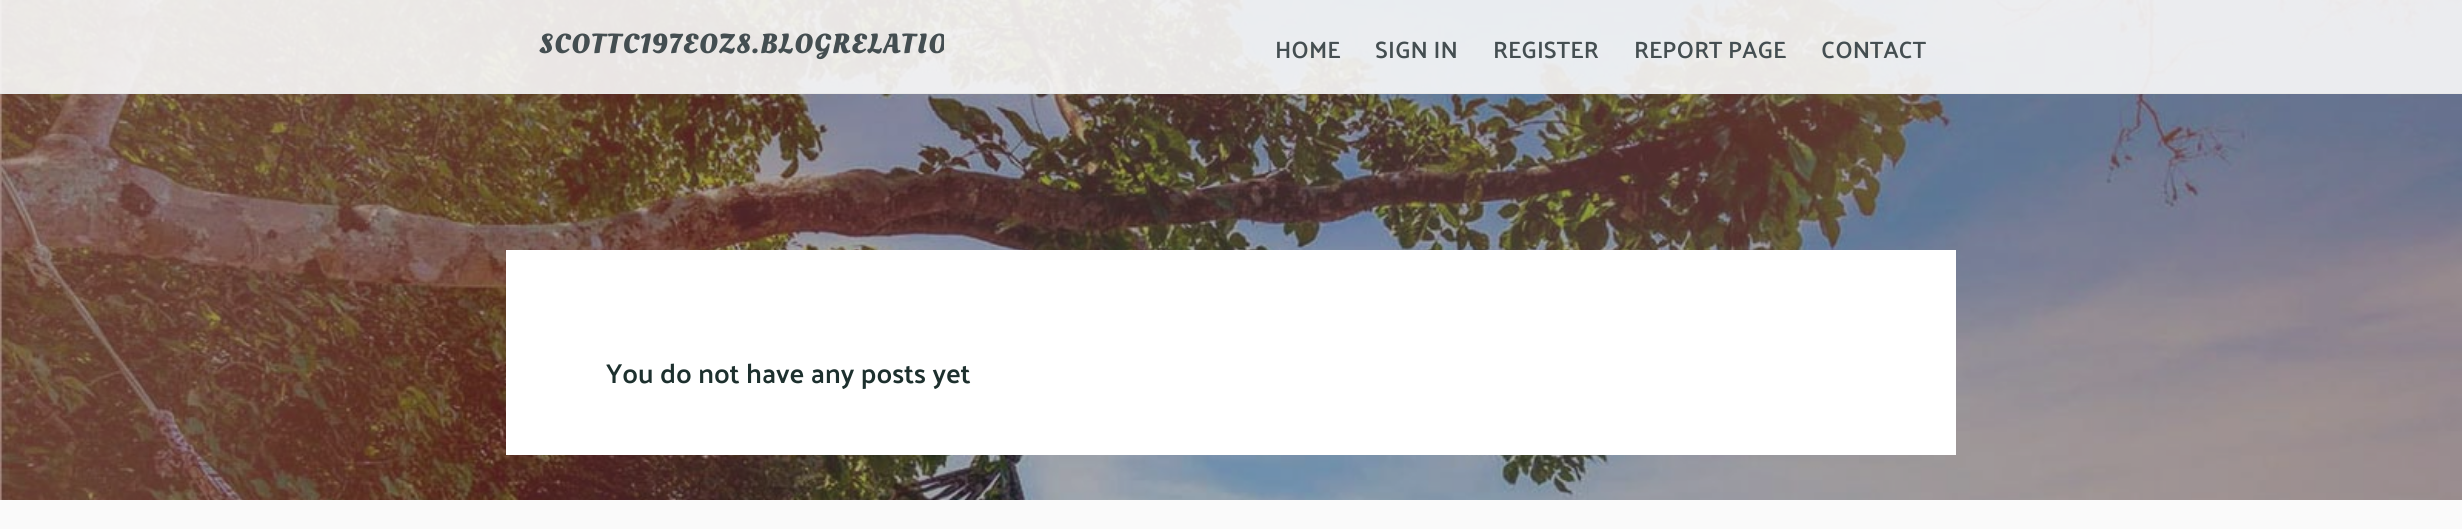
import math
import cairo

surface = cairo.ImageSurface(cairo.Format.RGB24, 2462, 529)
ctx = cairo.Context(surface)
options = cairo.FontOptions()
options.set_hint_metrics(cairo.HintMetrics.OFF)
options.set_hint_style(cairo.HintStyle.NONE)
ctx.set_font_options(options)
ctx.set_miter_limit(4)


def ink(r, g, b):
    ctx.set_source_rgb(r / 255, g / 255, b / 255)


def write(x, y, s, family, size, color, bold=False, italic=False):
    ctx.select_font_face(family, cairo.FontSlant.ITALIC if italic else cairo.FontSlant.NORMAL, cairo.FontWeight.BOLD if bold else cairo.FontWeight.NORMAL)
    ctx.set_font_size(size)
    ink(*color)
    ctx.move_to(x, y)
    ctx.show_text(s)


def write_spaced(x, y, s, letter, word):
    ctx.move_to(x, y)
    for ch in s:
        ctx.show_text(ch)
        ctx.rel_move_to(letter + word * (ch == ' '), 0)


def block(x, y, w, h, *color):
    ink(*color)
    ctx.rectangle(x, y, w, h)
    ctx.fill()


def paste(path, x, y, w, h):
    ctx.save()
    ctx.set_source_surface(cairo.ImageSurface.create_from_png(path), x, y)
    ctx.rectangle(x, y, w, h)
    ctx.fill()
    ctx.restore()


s1 = dict(family="Palanquin SemiBold", size=23.75, color=(68, 78, 81))
s2 = dict(family="Palanquin SemiBold", size=27.5, color=(29, 48, 46))

ink(250, 250, 250)
ctx.paint()
paste("pic1.png", 0, 0, 2462, 500)
ctx.set_source_rgba(0.98, 0.98, 0.98, 0.9)
ctx.rectangle(0, 0, 2462, 93)
ctx.fill()
block(0, 93, 2462, 1, 232, 232, 232)
ctx.save()
ctx.rectangle(534, 14, 410, 70)
ctx.clip()
ctx.select_font_face("Oleo Script", cairo.FontSlant.NORMAL, cairo.FontWeight.BOLD)
ctx.set_font_size(27.5)
ink(68, 78, 81)
write_spaced(539, 53, "SCOTTC197EOZ8.BLOGRELATIO", 1.25, 0)
ctx.restore()
write(1275, 58, "HOME", **s1)
write(1375, 58, "SIGN IN", **s1)
write(1493, 58, "REGISTER", **s1)
write(1634, 58, "REPORT PAGE", **s1)
write(1821, 58, "CONTACT", **s1)
block(506, 250, 1450, 205, 255, 255, 255)
write(606, 383, "You do not have any posts yet", **s2)
surface.write_to_png("screenshot.png")
